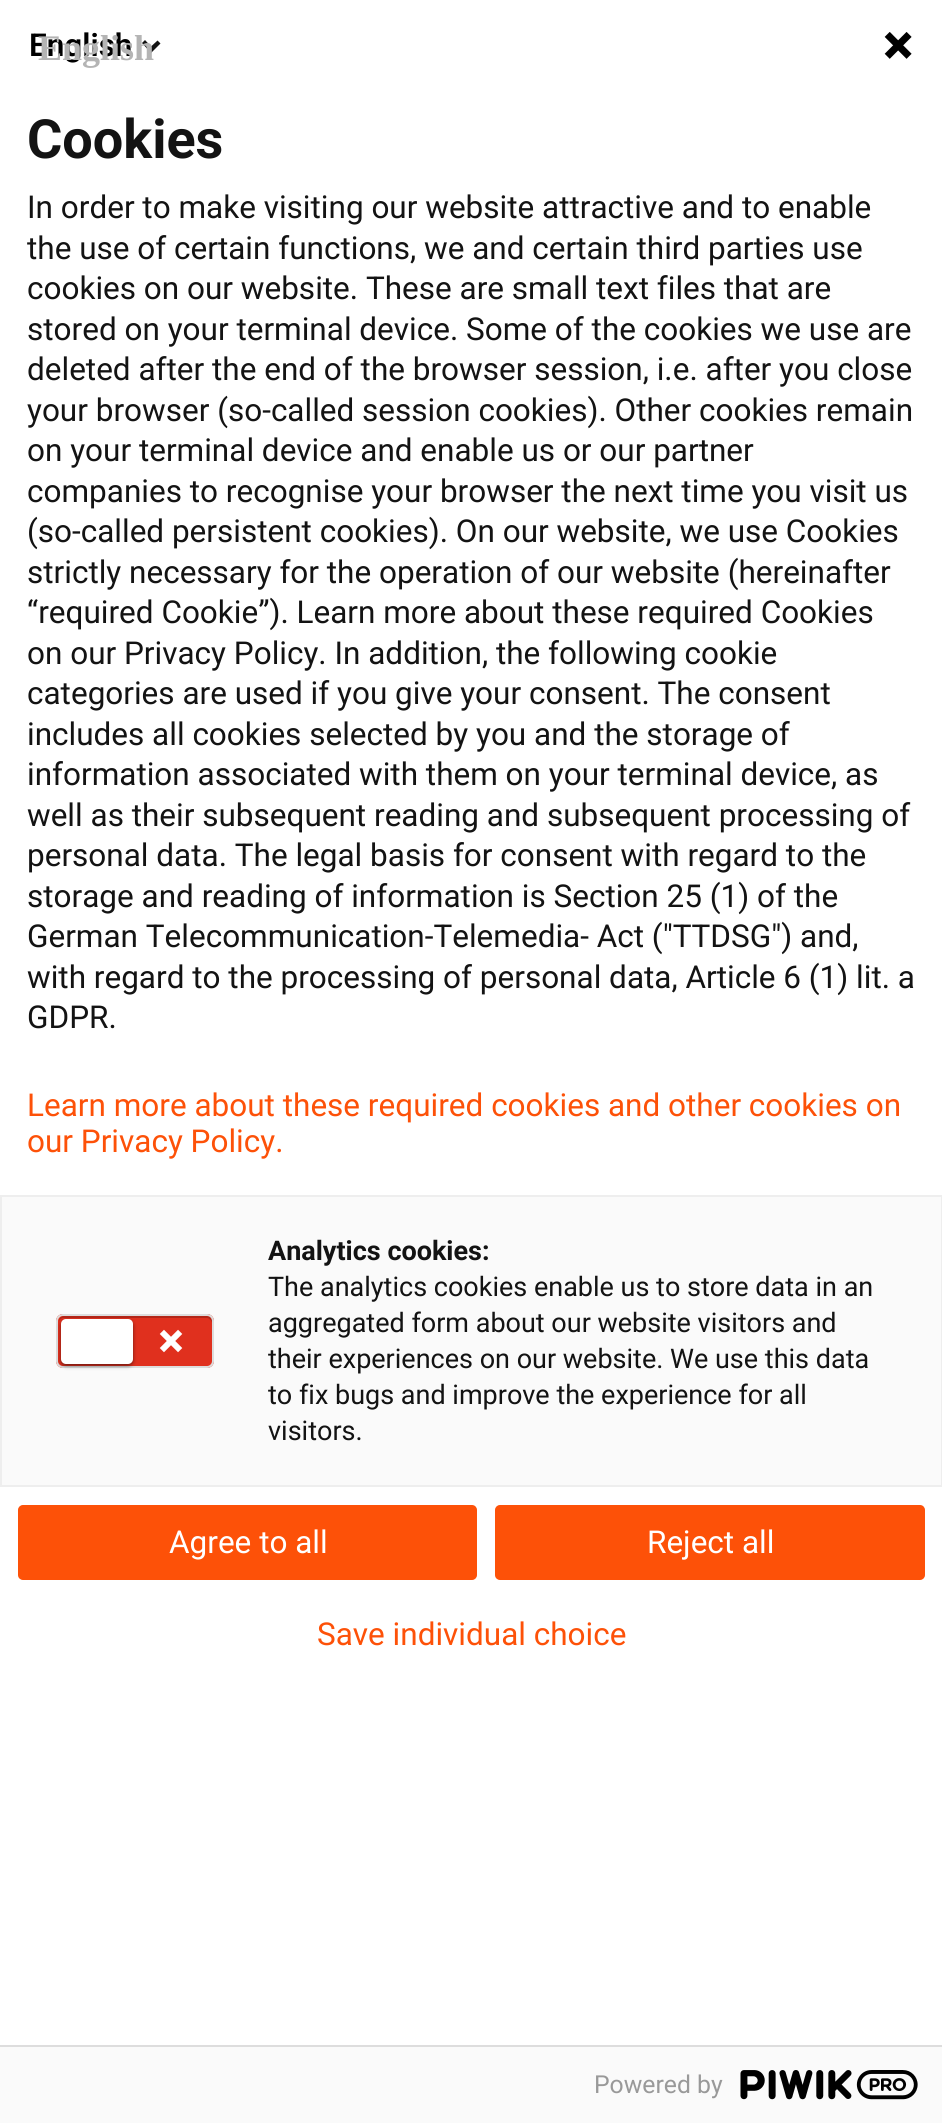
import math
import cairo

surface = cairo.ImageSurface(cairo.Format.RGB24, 942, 2123)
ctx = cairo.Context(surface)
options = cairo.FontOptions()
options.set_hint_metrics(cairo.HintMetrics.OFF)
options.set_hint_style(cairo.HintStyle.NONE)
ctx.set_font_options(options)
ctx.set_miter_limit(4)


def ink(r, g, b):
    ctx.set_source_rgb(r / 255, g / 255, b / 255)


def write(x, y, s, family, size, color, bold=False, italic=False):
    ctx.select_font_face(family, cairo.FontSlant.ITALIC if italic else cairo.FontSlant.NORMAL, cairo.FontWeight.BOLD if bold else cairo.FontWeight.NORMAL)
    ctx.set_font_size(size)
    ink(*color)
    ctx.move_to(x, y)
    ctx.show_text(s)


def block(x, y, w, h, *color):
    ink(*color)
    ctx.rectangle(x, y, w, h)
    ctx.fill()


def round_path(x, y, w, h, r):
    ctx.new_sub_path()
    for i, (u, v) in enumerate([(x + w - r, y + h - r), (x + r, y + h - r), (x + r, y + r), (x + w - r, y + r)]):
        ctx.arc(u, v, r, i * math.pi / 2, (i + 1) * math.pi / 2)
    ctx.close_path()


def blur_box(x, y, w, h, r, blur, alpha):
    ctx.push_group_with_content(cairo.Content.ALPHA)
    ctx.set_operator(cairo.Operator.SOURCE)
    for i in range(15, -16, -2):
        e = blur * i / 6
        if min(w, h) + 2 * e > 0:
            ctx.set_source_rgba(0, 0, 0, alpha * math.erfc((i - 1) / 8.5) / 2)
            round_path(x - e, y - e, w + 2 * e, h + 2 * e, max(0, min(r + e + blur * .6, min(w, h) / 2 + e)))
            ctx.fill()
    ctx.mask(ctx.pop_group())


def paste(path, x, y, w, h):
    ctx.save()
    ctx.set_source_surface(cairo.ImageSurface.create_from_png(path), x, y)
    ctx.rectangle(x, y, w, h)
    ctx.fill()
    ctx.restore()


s1 = dict(family="Roboto SemiBold", size=31.5, color=(0, 0, 0))
s2 = dict(family="Liberation Serif", size=36, color=(180, 180, 180), bold=True)
s3 = dict(family="Roboto", size=54, color=(19, 19, 19), bold=True)
s4 = dict(family="Roboto", size=31.5, color=(19, 19, 19))
s5 = dict(family="Roboto", size=31.5, color=(253, 81, 8))
s6 = dict(family="Roboto", size=27, color=(19, 19, 19), bold=True)
s7 = dict(family="Roboto", size=27, color=(19, 19, 19))
s8 = dict(family="Roboto", size=31.5, color=(255, 255, 255))
s9 = dict(family="Roboto", size=24.75, color=(153, 153, 153))

ink(255, 255, 255)
ctx.paint()
write(29, 56, "English", **s1)
ink(19, 19, 19)
ctx.new_path()
ctx.move_to(151, 46.5)
ctx.line_to(157.5, 40.5)
ctx.line_to(160.5, 43.5)
ctx.line_to(151, 53)
ctx.line_to(142, 43)
ctx.line_to(145, 40)
ctx.close_path()
ctx.fill()
write(38, 60, "English", **s2)
paste("pic1.png", 884, 32, 28, 27)
write(27, 158, "Cookies", **s3)
write(27, 218, "In order to make visiting our website attractive and to enable", **s4)
write(27, 259, "the use of certain functions, we and certain third parties use", **s4)
write(27, 299, "cookies on our website. These are small text files that are", **s4)
write(27, 340, "stored on your terminal device. Some of the cookies we use are", **s4)
write(27, 380, "deleted after the end of the browser session, i.e. after you close", **s4)
write(27, 421, "your browser (so-called session cookies). Other cookies remain", **s4)
write(27, 461, "on your terminal device and enable us or our partner", **s4)
write(27, 502, "companies to recognise your browser the next time you visit us", **s4)
write(27, 542, "(so-called persistent cookies). On our website, we use Cookies", **s4)
write(27, 583, "strictly necessary for the operation of our website (hereinafter", **s4)
write(27, 623, "“required Cookie”). Learn more about these required Cookies", **s4)
write(27, 664, "on our Privacy Policy. In addition, the following cookie", **s4)
write(27, 704, "categories are used if you give your consent. The consent", **s4)
write(27, 745, "includes all cookies selected by you and the storage of", **s4)
write(27, 785, "information associated with them on your terminal device, as", **s4)
write(27, 826, "well as their subsequent reading and subsequent processing of", **s4)
write(27, 866, "personal data. The legal basis for consent with regard to the", **s4)
write(27, 907, "storage and reading of information is Section 25 (1) of the", **s4)
write(27, 947, "German Telecommunication-Telemedia- Act (\"TTDSG\") and,", **s4)
write(27, 988, "with regard to the processing of personal data, Article 6 (1) lit. a", **s4)
write(27, 1028, "GDPR.", **s4)
write(27, 1116, "Learn more about these required cookies and other cookies on", **s5)
write(27, 1152, "our Privacy Policy.", **s5)
ink(250, 250, 250)
ctx.rectangle(1, 1196, 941, 290)
ctx.fill_preserve()
ink(238, 238, 238)
ctx.stroke()
ink(224, 48, 30)
round_path(56, 1314, 158, 54, 7)
ctx.fill()
ink(179, 38, 24)
ctx.new_path()
ctx.move_to(63, 1318)
ctx.line_to(207, 1318)
ctx.curve_to(209, 1318, 212, 1321, 212, 1323)
ctx.line_to(212, 1321)
ctx.curve_to(212, 1318, 210, 1316, 207, 1316)
ctx.line_to(64, 1316)
ctx.curve_to(61, 1316, 59, 1318, 59, 1321)
ctx.curve_to(60, 1319, 62, 1318, 63, 1318)
ctx.close_path()
ctx.fill()
round_path(57, 1315, 156, 52, 6)
ink(221, 221, 221)
ctx.stroke()
ink(0, 0, 0)
blur_box(61, 1321, 72, 45, 5, 2, 0.5)
ink(255, 255, 255)
round_path(61, 1319, 72, 45, 5)
ctx.fill()
paste("pic2.png", 159, 1329, 24, 24)
write(268, 1260, "Analytics cookies:", **s6)
write(268, 1296, "The analytics cookies enable us to store data in an", **s7)
write(268, 1332, "aggregated form about our website visitors and", **s7)
write(268, 1368, "their experiences on our website. We use this data", **s7)
write(268, 1404, "to fix bugs and improve the experience for all", **s7)
write(268, 1440, "visitors.", **s7)
ink(253, 81, 8)
round_path(19, 1506, 457, 73, 4)
ctx.fill_preserve()
ctx.stroke()
write(169, 1553, "Agree to all", **s8)
ink(253, 81, 8)
round_path(496, 1506, 428, 73, 4)
ctx.fill_preserve()
ctx.stroke()
write(647, 1553, "Reject all", **s8)
write(317, 1645, "Save individual choice", **s5)
block(0, 2047, 942, 76, 250, 250, 250)
block(0, 2045, 942, 2, 221, 221, 221)
write(594, 2093, "Powered by", **s9)
paste("pic3.png", 740, 2070, 178, 30)
surface.write_to_png("screenshot.png")
